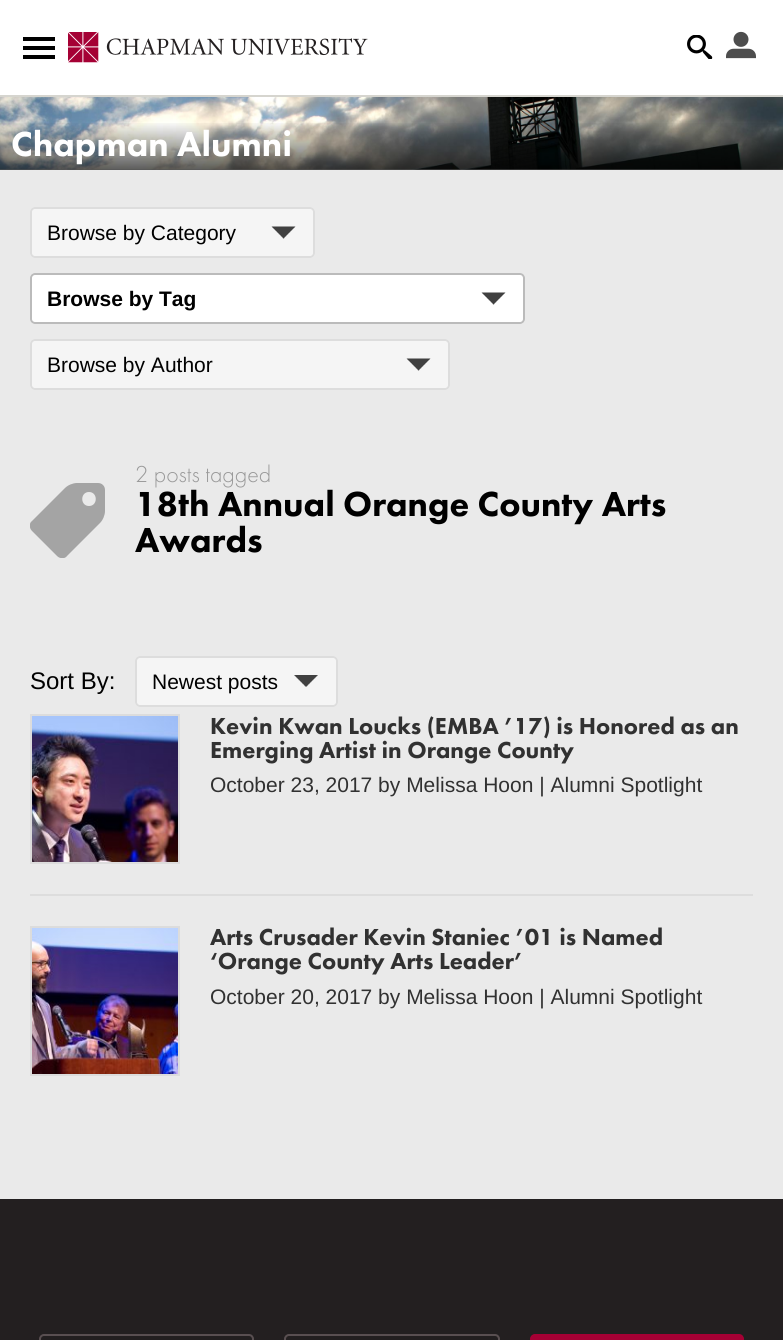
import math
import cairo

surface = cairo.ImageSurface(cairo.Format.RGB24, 783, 1340)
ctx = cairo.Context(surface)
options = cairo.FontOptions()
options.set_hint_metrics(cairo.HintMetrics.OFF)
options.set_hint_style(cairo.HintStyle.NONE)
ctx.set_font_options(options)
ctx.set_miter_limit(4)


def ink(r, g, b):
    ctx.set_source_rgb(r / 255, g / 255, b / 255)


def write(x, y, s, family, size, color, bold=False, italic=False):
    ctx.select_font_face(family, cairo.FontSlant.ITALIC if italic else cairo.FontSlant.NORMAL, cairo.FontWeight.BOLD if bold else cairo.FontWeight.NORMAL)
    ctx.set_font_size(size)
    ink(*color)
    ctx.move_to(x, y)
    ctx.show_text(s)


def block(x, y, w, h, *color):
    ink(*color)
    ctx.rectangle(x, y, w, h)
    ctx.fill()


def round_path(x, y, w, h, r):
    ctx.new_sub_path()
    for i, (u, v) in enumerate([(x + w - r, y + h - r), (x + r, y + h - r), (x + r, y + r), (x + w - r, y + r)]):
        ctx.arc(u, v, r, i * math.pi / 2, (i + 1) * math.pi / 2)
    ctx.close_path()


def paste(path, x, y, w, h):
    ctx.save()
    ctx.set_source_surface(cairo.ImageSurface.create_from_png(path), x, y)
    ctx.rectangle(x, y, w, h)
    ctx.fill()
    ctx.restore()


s1 = dict(family="Futura PT Black", size=36, color=(255, 255, 255))
s2 = dict(family="Liberation Sans", size=21, color=(0, 0, 0))
s3 = dict(family="Liberation Sans", size=21, color=(0, 0, 0), bold=True)
s4 = dict(family="Futura PT Light", size=24, color=(153, 153, 153))
s5 = dict(family="Futura PT Black", size=36, color=(0, 0, 0))
s6 = dict(family="Liberation Sans", size=24, color=(0, 0, 0))
s7 = dict(family="Futura PT Black", size=24, color=(49, 49, 49))
s8 = dict(family="Liberation Sans", size=21, color=(49, 49, 49))

ink(234, 234, 234)
ctx.paint()
block(0, 0, 783, 95, 255, 255, 255)
block(0, 95, 783, 2, 214, 213, 207)
block(23, 37, 32, 4, 0, 0, 0)
block(23, 46, 32, 4, 0, 0, 0)
block(23, 55, 32, 4, 0, 0, 0)
paste("pic1.png", 68, 32, 300, 31)
paste("pic2.png", 687, 35, 26, 24)
paste("pic3.png", 726, 31, 30, 28)
paste("pic4.png", 0, 97, 783, 73)
gradient = cairo.LinearGradient(392, 96, 392, 170)
gradient.add_color_stop_rgba(0.33, 0, 0, 0, 0)
gradient.add_color_stop_rgba(0.34, 0, 0, 0, 0)
gradient.add_color_stop_rgba(1, 0, 0, 0, 0.64)
ctx.set_source(gradient)
ctx.rectangle(0, 123, 783, 47)
ctx.fill()
write(11, 156, "Chapman Alumni", **s1)
ink(245, 245, 245)
round_path(30, 207, 285, 51, 5)
ctx.fill()
paste("pic5.png", 271, 226, 25, 13)
round_path(31, 208, 283, 49, 4)
ink(221, 221, 221)
ctx.stroke()
write(47, 240, "Browse by Category", **s2)
ink(255, 255, 255)
round_path(30, 273, 495, 51, 5)
ctx.fill()
paste("pic6.png", 481, 292, 25, 13)
round_path(31, 274, 493, 49, 4)
ink(187, 187, 187)
ctx.stroke()
write(47, 306, "Browse by Tag", **s3)
ink(245, 245, 245)
round_path(30, 339, 420, 51, 5)
ctx.fill()
paste("pic5.png", 406, 358, 25, 13)
round_path(31, 340, 418, 49, 4)
ink(221, 221, 221)
ctx.stroke()
write(47, 372, "Browse by Author", **s2)
write(135, 482, "2 posts tagged", **s4)
ctx.save()
ctx.rectangle(30, 483, 75, 75)
ctx.clip()
ink(164, 164, 164)
ctx.new_path()
ctx.move_to(98, 483)
ctx.line_to(77, 483)
ctx.curve_to(73, 483, 68, 485, 65, 488)
ctx.line_to(32, 521)
ctx.curve_to(29, 523, 29, 528, 32, 531)
ctx.line_to(57, 556)
ctx.curve_to(60, 559, 65, 559, 67, 556)
ctx.line_to(100, 523)
ctx.curve_to(103, 520, 105, 515, 105, 511)
ctx.line_to(105, 490)
ctx.curve_to(105, 486, 102, 483, 98, 483)
ctx.close_path()
ctx.move_to(89, 506)
ctx.curve_to(80, 506, 80, 492, 89, 492)
ctx.curve_to(98, 492, 98, 506, 89, 506)
ctx.close_path()
ctx.fill()
ctx.restore()
write(135, 516, "18th Annual Orange County Arts", **s5)
write(135, 552, "Awards", **s5)
write(30, 689, "Sort By:", **s6)
ink(245, 245, 245)
round_path(135, 656, 203, 51, 5)
ctx.fill()
paste("pic7.png", 294, 675, 24, 12)
round_path(136, 657, 201, 49, 4)
ink(221, 221, 221)
ctx.stroke()
write(152, 689, "Newest posts", **s2)
block(30, 894, 723, 2, 221, 221, 221)
paste("pic8.png", 32, 716, 146, 146)
ctx.rectangle(31, 715, 148, 148)
ink(220, 220, 220)
ctx.stroke()
write(210, 734, "Kevin Kwan Loucks (EMBA ’17) is Honored as an", **s7)
write(210, 758, "Emerging Artist in Orange County", **s7)
write(210, 792, "October 23, 2017 by Melissa Hoon | Alumni Spotlight", **s8)
paste("pic9.png", 32, 928, 146, 146)
ctx.rectangle(31, 927, 148, 148)
ink(220, 220, 220)
ctx.stroke()
write(210, 945, "Arts Crusader Kevin Staniec ’01 is Named", **s7)
write(210, 969, "‘Orange County Arts Leader’", **s7)
write(210, 1004, "October 20, 2017 by Melissa Hoon | Alumni Spotlight", **s8)
block(0, 1199, 783, 141, 35, 31, 32)
round_path(40, 1335, 213, 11, 4)
ink(89, 79, 81)
ctx.stroke()
round_path(285, 1335, 214, 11, 4)
ctx.stroke()
ink(165, 0, 52)
round_path(531, 1335, 212, 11, 4)
ctx.fill_preserve()
ctx.stroke()
surface.write_to_png("screenshot.png")
